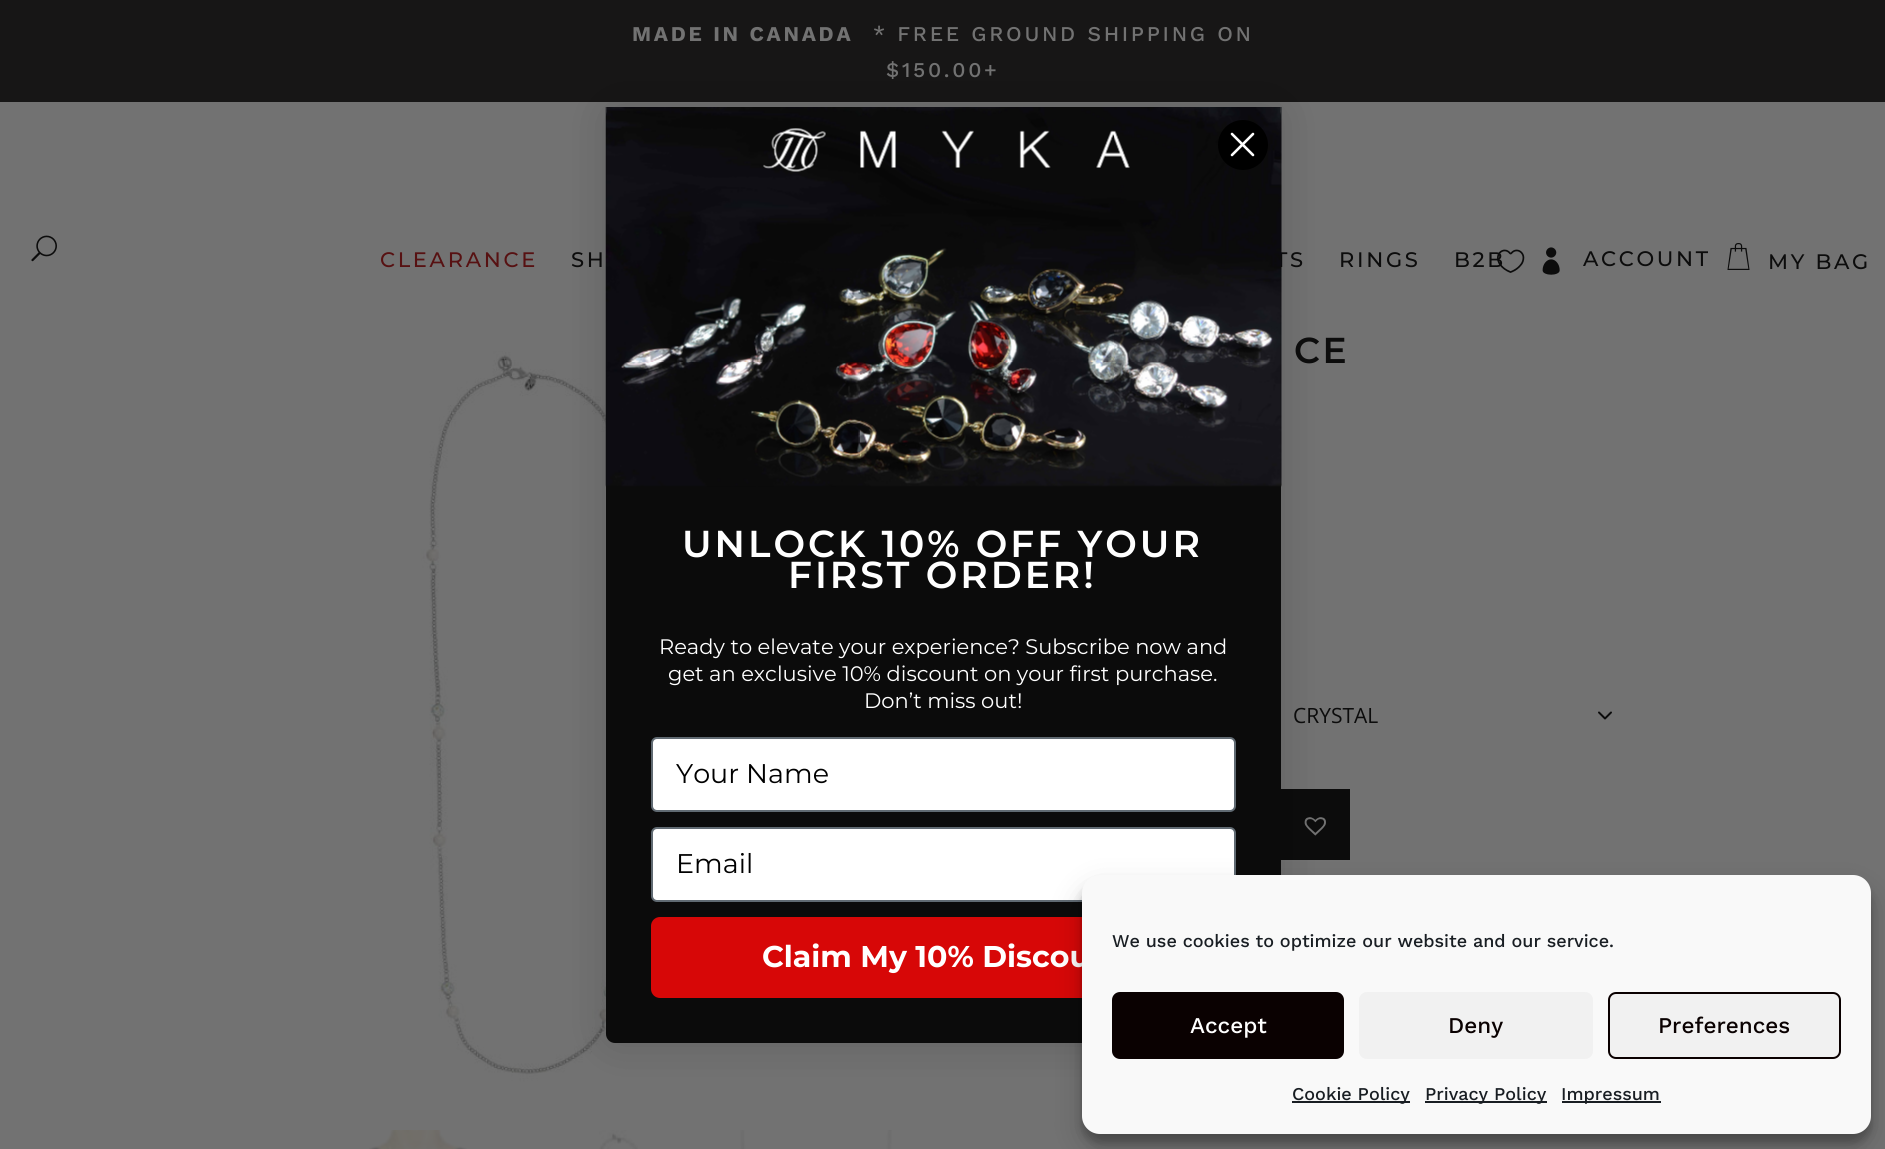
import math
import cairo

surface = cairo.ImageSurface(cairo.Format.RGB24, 1885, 1149)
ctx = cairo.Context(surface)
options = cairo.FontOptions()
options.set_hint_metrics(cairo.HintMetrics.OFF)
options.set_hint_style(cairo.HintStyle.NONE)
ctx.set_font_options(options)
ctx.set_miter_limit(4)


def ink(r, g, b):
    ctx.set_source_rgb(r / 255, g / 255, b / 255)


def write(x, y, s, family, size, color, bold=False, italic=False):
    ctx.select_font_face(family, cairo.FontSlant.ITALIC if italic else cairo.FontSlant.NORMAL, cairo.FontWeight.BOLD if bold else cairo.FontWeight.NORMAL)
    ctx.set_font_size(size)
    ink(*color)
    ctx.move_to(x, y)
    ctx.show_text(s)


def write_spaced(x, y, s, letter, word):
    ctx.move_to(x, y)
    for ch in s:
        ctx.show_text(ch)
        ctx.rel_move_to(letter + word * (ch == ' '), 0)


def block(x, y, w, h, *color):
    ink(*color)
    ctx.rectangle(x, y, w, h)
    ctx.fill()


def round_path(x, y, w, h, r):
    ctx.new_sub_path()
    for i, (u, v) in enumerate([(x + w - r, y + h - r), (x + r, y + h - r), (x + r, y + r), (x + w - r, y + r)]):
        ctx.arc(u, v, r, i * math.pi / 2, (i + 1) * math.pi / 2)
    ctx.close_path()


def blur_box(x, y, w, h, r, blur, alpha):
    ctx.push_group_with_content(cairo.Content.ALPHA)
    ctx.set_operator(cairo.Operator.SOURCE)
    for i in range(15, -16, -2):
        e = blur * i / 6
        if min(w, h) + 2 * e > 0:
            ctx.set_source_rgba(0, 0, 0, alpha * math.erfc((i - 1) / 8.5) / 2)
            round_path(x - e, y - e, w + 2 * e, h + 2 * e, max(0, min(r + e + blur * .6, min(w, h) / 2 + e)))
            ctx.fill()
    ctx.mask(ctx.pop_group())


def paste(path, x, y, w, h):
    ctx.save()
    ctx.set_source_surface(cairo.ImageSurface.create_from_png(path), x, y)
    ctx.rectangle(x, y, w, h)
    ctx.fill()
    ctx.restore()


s1 = dict(family="Open Sans", size=21, color=(12, 12, 12))
s2 = dict(family="Montserrat", size=21, color=(255, 255, 255))
s3 = dict(family="Montserrat", size=27, color=(0, 0, 0))
s4 = dict(family="Montserrat", size=30, color=(255, 255, 255), bold=True)
s5 = dict(family="Work Sans Medium", size=18, color=(25, 30, 35))
s6 = dict(family="Work Sans Medium", size=22.5, color=(255, 255, 255))
s7 = dict(family="Work Sans Medium", size=22.5, color=(10, 1, 1))

ink(114, 114, 114)
ctx.paint()
block(0, 0, 1885, 102, 23, 22, 22)
ctx.select_font_face("Work Sans", cairo.FontSlant.NORMAL, cairo.FontWeight.BOLD)
ctx.set_font_size(21)
ink(114, 114, 114)
write_spaced(632, 41, "MADE IN CANADA", 2.7, 0)
ctx.select_font_face("Work Sans Medium")
write_spaced(873, 41, "* FREE GROUND SHIPPING ON", 2.7, 0)
write_spaced(886, 77, "$150.00+", 2.7, 0)
ctx.select_font_face("Montserrat Medium")
ink(87, 17, 18)
write_spaced(380, 267, "CLEARANCE", 2.7, 0)
ink(12, 12, 12)
write_spaced(571, 267, "SH", 2.7, 0)
write_spaced(1275, 267, "TS", 2.7, 0)
write_spaced(1339, 267, "RINGS", 2.7, 0)
write_spaced(1454, 267, "B2B", 2.7, 0)
paste("pic1.png", 31, 235, 26, 27)
paste("pic2.png", 1497, 249, 28, 24)
paste("pic3.png", 1542, 247, 18, 28)
write_spaced(1583, 266, "ACCOUNT", 2.7, 0)
paste("pic4.png", 1727, 243, 23, 27)
write_spaced(1768, 269, "MY BAG", 2.7, 0)
paste("pic5.png", 132, 351, 505, 749)
paste("pic6.png", 369, 1130, 98, 19)
paste("pic7.png", 599, 1130, 39, 19)
paste("pic8.png", 740, 1130, 152, 19)
ctx.select_font_face("Montserrat SemiBold")
ctx.set_font_size(36)
write_spaced(1294, 363, "CE", 2.7, 0)
ctx.new_path()
ctx.move_to(1599, 712.5)
ctx.line_to(1605, 718.5)
ctx.line_to(1611, 712.5)
ctx.set_line_cap(cairo.LineCap.ROUND)
ctx.set_line_join(cairo.LineJoin.ROUND)
ctx.stroke()
write(1293, 723, "CRYSTAL", **s1)
block(1281, 789, 69, 71, 12, 12, 12)
paste("pic9.png", 1304, 817, 22, 19)
ink(0, 0, 0)
blur_box(606, 107, 675, 936, 9, 22.5, 0.15)
ink(11, 11, 11)
round_path(606, 107, 675, 936, 9)
ctx.fill()
paste("pic10.png", 605, 107, 677, 380)
ink(0, 0, 0)
ctx.arc(1243, 145, 25, 0, 2 * math.pi)
ctx.fill()
ctx.new_path()
ctx.move_to(1232, 134)
ctx.line_to(1253, 155)
ctx.move_to(1232, 155)
ctx.line_to(1253, 134)
ctx.close_path()
ink(255, 255, 255)
ctx.set_line_width(2.6)
ctx.stroke()
ctx.select_font_face("Montserrat SemiBold")
ctx.set_font_size(37.5)
write_spaced(682, 557, "UNLOCK 10% OFF YOUR", 3, 0)
write_spaced(788, 588, "FIRST ORDER!", 3, 0)
write(659, 654, "Ready to elevate your experience? Subscribe now and", **s2)
write(668, 681, "get an exclusive 10% discount on your first purchase.", **s2)
write(864, 708, "Don’t miss out!", **s2)
round_path(652, 738, 583, 73, 5)
ctx.fill_preserve()
ink(96, 106, 114)
ctx.set_line_width(2)
ctx.set_line_cap(cairo.LineCap.BUTT)
ctx.set_line_join(cairo.LineJoin.MITER)
ctx.stroke()
write(676, 783, "Your Name", **s3)
ink(255, 255, 255)
round_path(652, 828, 583, 73, 5)
ctx.fill_preserve()
ink(96, 106, 114)
ctx.stroke()
write(676, 873, "Email", **s3)
ink(215, 7, 7)
round_path(651, 917, 585, 81, 9)
ctx.fill()
write(762, 967, "Claim My 10% Discou", **s4)
ink(0, 0, 0)
blur_box(1082, 884, 789, 259, 18, 4.5, 0.23)
blur_box(1082, 890, 789, 259, 18, 15, 0.19)
ink(249, 249, 249)
round_path(1082, 875, 789, 259, 18)
ctx.fill()
write(1112, 947, "We use cookies to optimize our website and our service.", **s5)
ink(10, 1, 1)
round_path(1113, 993, 230, 65, 7)
ctx.fill_preserve()
ctx.stroke()
write(1190, 1033, "Accept", **s6)
ink(241, 241, 241)
round_path(1359, 992, 234, 67, 8)
ctx.fill()
write(1448, 1033, "Deny", **s7)
ink(241, 241, 241)
round_path(1609, 993, 231, 65, 7)
ctx.fill_preserve()
ink(10, 0, 0)
ctx.stroke()
write(1658, 1033, "Preferences", **s7)
block(1292, 1101, 118, 2, 25, 30, 35)
write(1292, 1100, "Cookie Policy", **s5)
block(1425, 1101, 122, 2, 25, 30, 35)
write(1425, 1100, "Privacy Policy", **s5)
block(1562, 1101, 99, 2, 25, 30, 35)
write(1561, 1100, "Impressum", **s5)
surface.write_to_png("screenshot.png")
